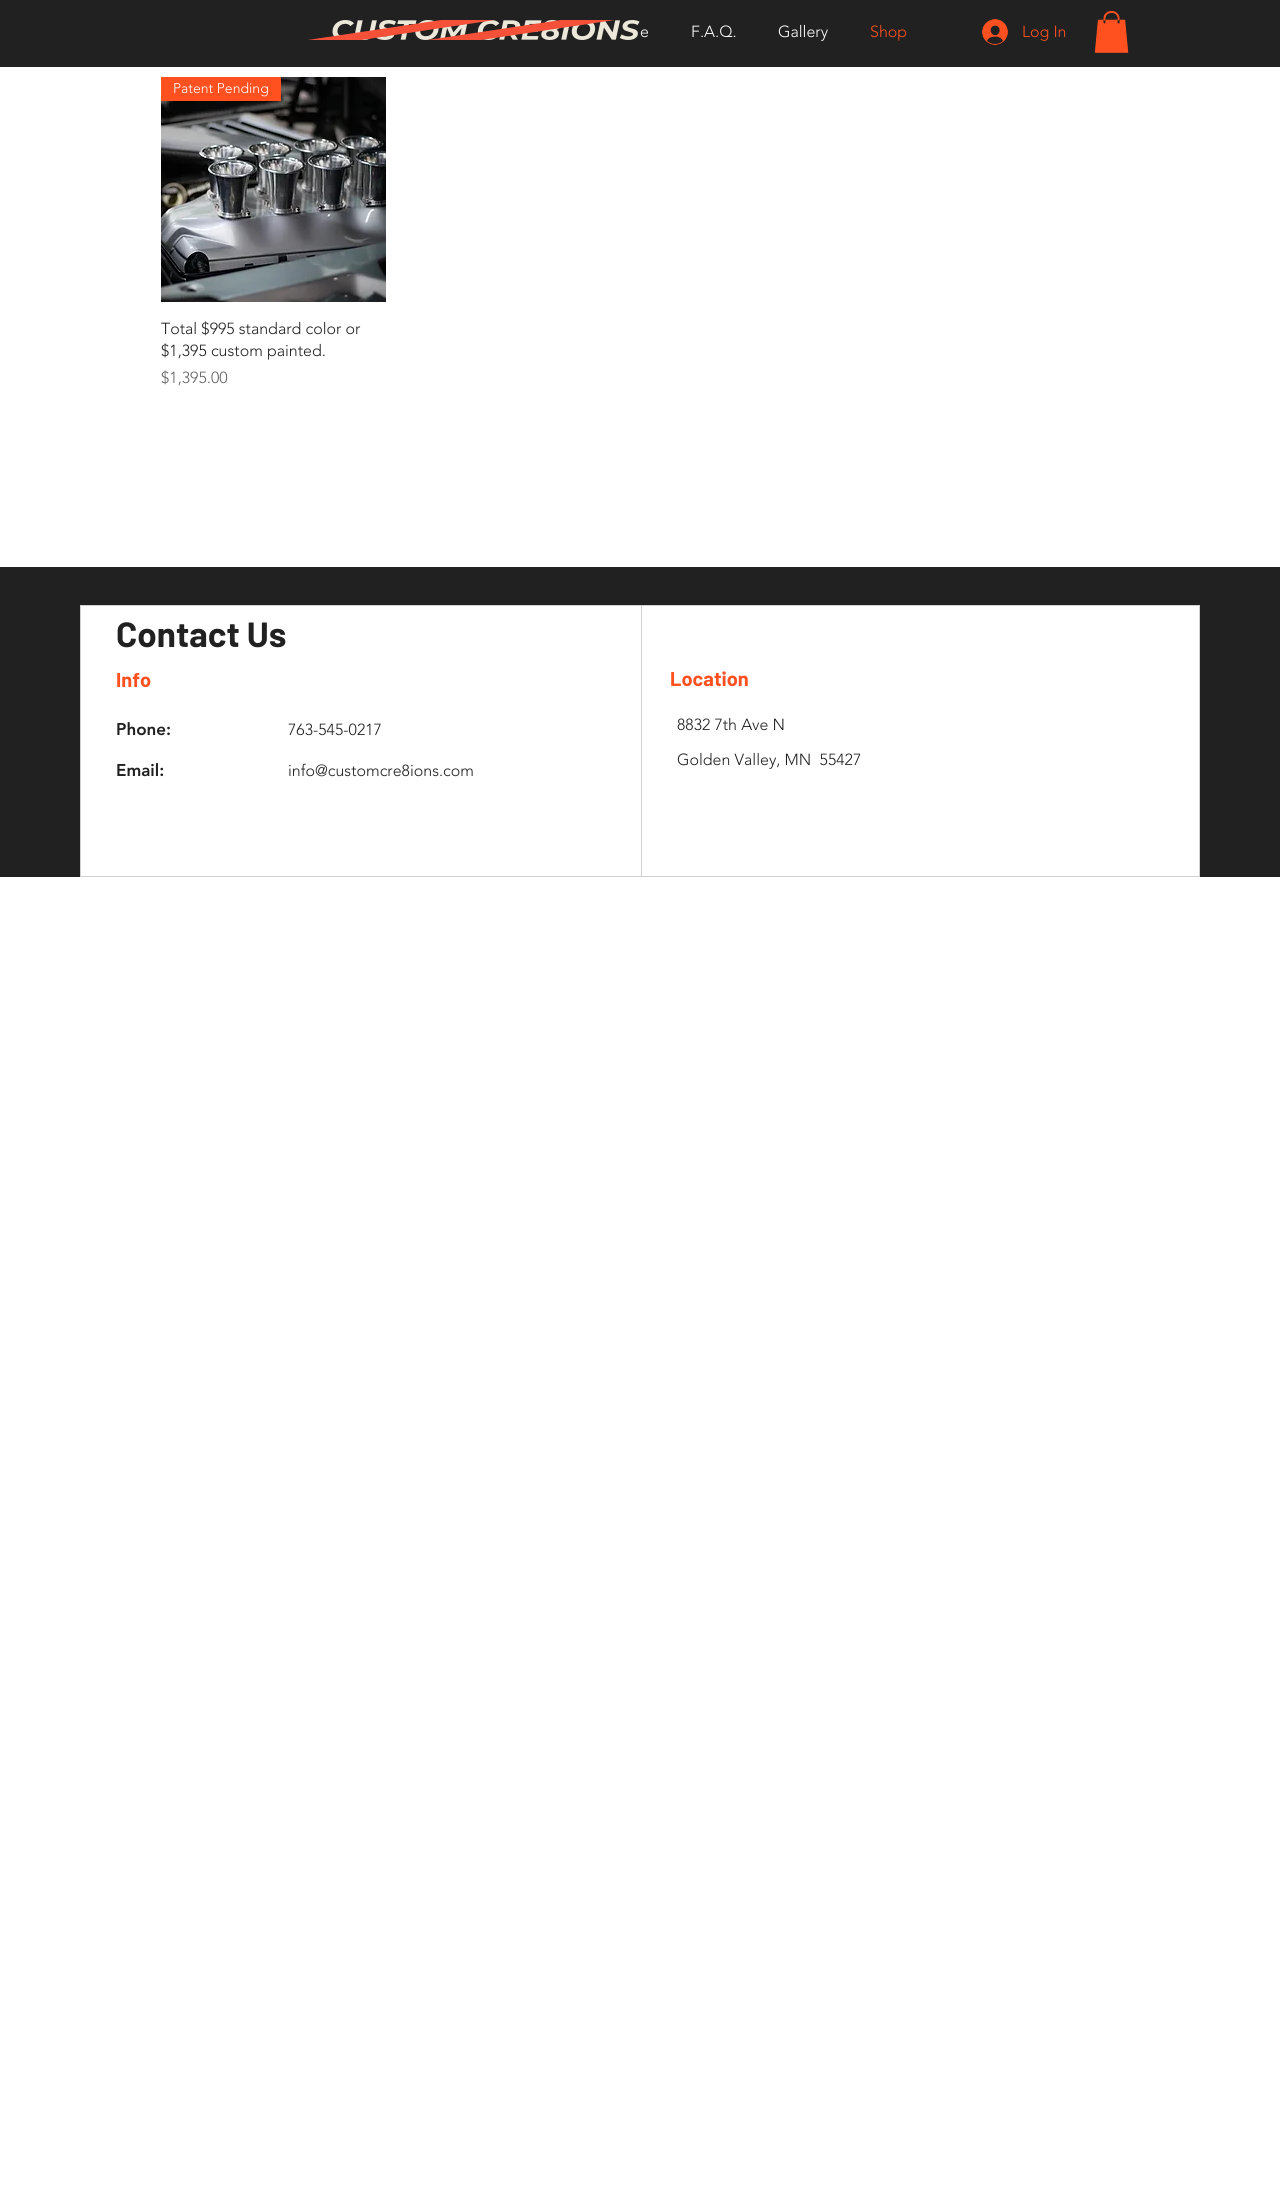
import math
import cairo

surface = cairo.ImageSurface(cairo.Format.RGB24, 1280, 2185)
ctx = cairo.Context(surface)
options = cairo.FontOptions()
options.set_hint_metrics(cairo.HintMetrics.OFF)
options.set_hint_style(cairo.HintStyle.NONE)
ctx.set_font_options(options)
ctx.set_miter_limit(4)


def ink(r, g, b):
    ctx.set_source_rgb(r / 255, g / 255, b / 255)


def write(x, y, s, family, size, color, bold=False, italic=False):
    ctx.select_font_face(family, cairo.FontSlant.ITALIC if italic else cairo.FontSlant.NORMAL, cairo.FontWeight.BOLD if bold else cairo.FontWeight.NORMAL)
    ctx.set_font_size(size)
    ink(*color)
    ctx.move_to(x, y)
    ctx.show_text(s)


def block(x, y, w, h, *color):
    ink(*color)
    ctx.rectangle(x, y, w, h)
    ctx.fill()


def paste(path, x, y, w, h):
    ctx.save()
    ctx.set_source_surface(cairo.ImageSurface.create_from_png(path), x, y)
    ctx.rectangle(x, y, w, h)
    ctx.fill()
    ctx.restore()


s1 = dict(family="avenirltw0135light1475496 Light", size=16, color=(255, 255, 255))
s2 = dict(family="avenirltw0135light1475496 Light", size=16, color=(255, 80, 32))
s3 = dict(family="avenirltw0135light1475496 Light", size=14, color=(255, 255, 255))
s4 = dict(family="avenirltw0135light1475496 Light", size=16, color=(33, 33, 33))
s5 = dict(family="avenirltw0135light1475496 Light", size=16, color=(99, 99, 99))
s6 = dict(family="Barlow", size=35, color=(33, 33, 33), bold=True)
s7 = dict(family="Barlow", size=20, color=(255, 80, 32), bold=True)
s8 = dict(family="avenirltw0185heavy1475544 Black", size=17, color=(33, 33, 33))

ink(255, 255, 255)
ctx.paint()
block(0, 0, 1280, 67, 33, 33, 33)
paste("pic1.png", 308, 20, 332, 20)
write(640, 37, "e", **s1)
write(691, 37, "F.A.Q.", **s1)
write(778, 37, "Gallery", **s1)
write(870, 37, "Shop", **s2)
paste("pic2.png", 982, 19, 26, 26)
write(1022, 37, "Log In", **s2)
paste("pic3.png", 1094, 11, 35, 42)
paste("pic4.png", 161, 77, 225, 225)
block(161, 77, 120, 24, 255, 80, 32)
write(173, 93, "Patent Pending", **s3)
write(161, 334, "Total $995 standard color or", **s4)
write(161, 356, "$1,395 custom painted.", **s4)
write(161, 383, "$1,395.00", **s5)
block(0, 567, 1280, 310, 33, 33, 33)
block(80, 605, 1120, 272, 209, 209, 209)
block(81, 606, 560, 270, 255, 255, 255)
write(116, 647, "Contact Us", **s6)
write(116, 687, "Info", **s7)
write(116, 735, "Phone:", **s8)
write(288, 735, "763-545-0217", **s4)
write(116, 776, "Email:", **s8)
write(288, 776, "info@customcre8ions.com", **s4)
block(642, 606, 557, 270, 255, 255, 255)
write(670, 686, "Location", **s7)
write(677, 730, "8832 7th Ave N", **s4)
write(677, 765, "Golden Valley, MN  55427", **s4)
surface.write_to_png("screenshot.png")
